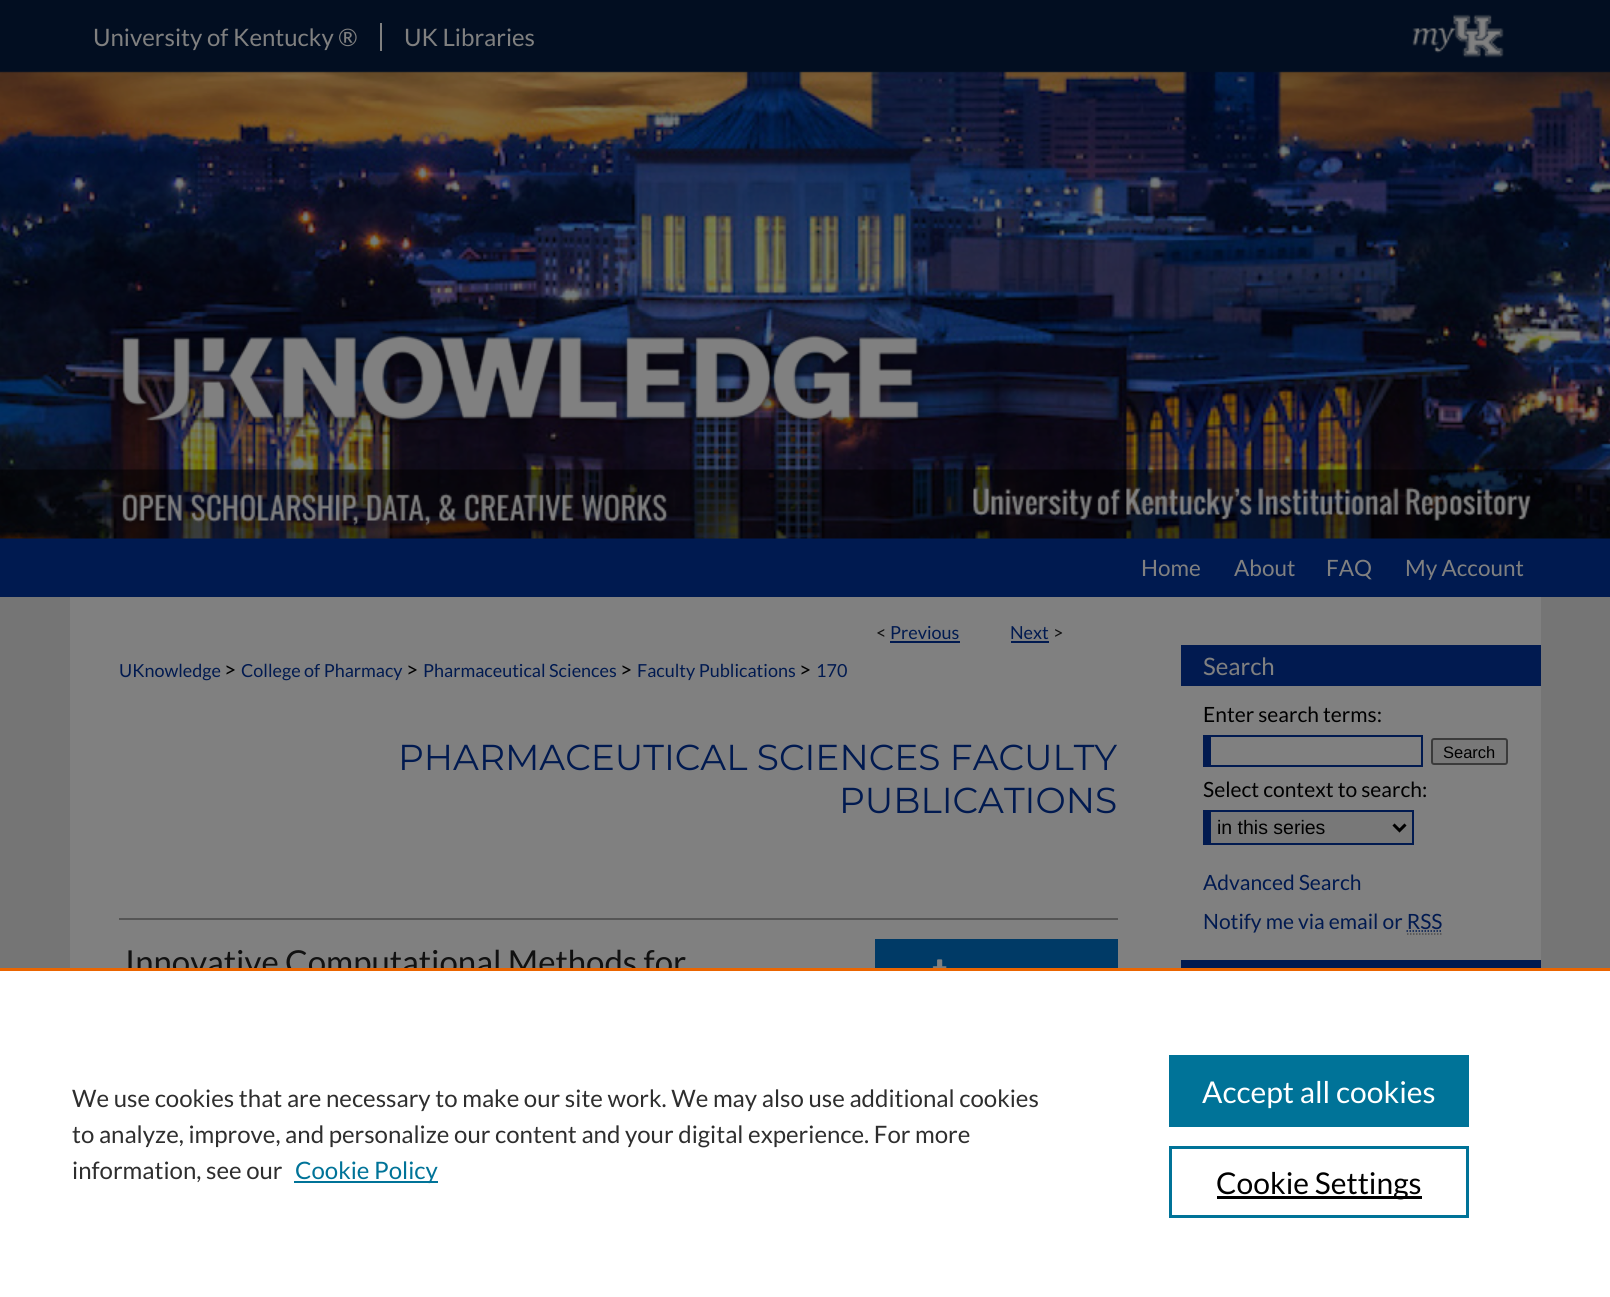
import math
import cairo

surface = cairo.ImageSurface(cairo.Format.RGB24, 1610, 1297)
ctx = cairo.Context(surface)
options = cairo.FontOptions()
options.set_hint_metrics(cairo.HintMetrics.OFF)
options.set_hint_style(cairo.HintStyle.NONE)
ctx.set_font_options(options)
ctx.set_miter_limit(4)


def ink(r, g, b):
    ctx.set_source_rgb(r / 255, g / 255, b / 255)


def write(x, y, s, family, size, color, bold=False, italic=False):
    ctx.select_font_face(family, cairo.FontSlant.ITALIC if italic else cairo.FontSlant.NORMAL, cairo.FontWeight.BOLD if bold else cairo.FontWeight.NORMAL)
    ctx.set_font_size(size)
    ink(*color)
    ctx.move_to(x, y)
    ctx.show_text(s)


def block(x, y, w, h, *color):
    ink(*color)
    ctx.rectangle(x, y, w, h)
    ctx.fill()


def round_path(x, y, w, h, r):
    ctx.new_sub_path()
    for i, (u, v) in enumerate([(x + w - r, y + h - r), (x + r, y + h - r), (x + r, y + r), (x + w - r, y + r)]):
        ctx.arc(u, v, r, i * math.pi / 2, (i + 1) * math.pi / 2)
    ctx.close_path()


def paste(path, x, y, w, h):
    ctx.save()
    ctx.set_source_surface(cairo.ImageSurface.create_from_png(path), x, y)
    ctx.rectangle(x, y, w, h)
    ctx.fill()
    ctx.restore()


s1 = dict(family="Lato", size=24, color=(128, 128, 128))
s2 = dict(family="Lato", size=22.5, color=(128, 128, 128))
s3 = dict(family="Lato", size=18, color=(17, 17, 17))
s4 = dict(family="Lato", size=18, color=(1, 26, 80))
s5 = dict(family="Lato", size=21, color=(0, 0, 0))
s6 = dict(family="Montserrat", size=36, color=(1, 26, 80))
s7 = dict(family="Lato", size=33, color=(17, 17, 17))
s8 = dict(family="Liberation Sans", size=16.5, color=(0, 0, 0))
s9 = dict(family="Liberation Sans", size=19.5, color=(0, 0, 0))
s10 = dict(family="Lato", size=21, color=(1, 26, 80))
s11 = dict(family="Lato", size=24, color=(46, 46, 46))
s12 = dict(family="Lato", size=24, color=(0, 115, 152))
s13 = dict(family="Lato", size=30, color=(255, 255, 255))
s14 = dict(family="Lato", size=30, color=(0, 0, 0))

ink(117, 117, 117)
ctx.paint()
paste("pic1.png", 0, 0, 1610, 597)
block(380, 23, 2, 28, 128, 128, 128)
write(93, 46, "University of Kentucky ®", **s1)
write(404, 46, "UK Libraries", **s1)
paste("pic2.png", 1412, 14, 92, 44)
paste("pic3.png", 112, 327, 1419, 199)
write(1141, 576, "Home", **s2)
write(1234, 576, "About", **s2)
write(1326, 576, "FAQ", **s2)
write(1405, 576, "My Account", **s2)
block(70, 597, 1471, 371, 128, 128, 128)
write(876, 639, "<", **s3)
write(890, 639, "Previous", **s4)
block(890, 641, 70, 2, 1, 26, 80)
write(1010, 639, "Next", **s4)
block(1011, 641, 38, 2, 1, 26, 80)
write(1053, 639, ">", **s3)
write(119, 677, "UKnowledge", **s4)
write(224, 677, ">", **s5)
write(241, 677, "College of Pharmacy", **s4)
write(406, 677, ">", **s5)
write(423, 677, "Pharmaceutical Sciences", **s4)
write(620, 677, ">", **s5)
write(637, 677, "Faculty Publications", **s4)
write(799, 677, ">", **s5)
write(816, 677, "170", **s4)
write(398, 770, "PHARMACEUTICAL SCIENCES FACULTY", **s6)
write(839, 813, "PUBLICATIONS", **s6)
block(119, 918, 999, 2, 85, 85, 85)
write(125, 974, "Innovative Computational Methods for", **s7)
block(875, 939, 243, 29, 0, 58, 102)
paste("pic4.png", 932, 959, 15, 9)
block(1181, 645, 360, 41, 1, 26, 80)
write(1203, 675, "Search", **s1)
write(1203, 722, "Enter search terms:", **s5)
block(1203, 735, 219, 2, 1, 26, 80)
block(1421, 735, 2, 32, 1, 26, 80)
block(1203, 765, 219, 2, 1, 26, 80)
block(1203, 735, 8, 32, 1, 26, 80)
ink(120, 120, 120)
round_path(1432, 739, 75, 25, 2)
ctx.fill_preserve()
ink(59, 59, 59)
ctx.stroke()
write(1443, 758, "Search", **s8)
write(1203, 797, "Select context to search:", **s5)
block(1211, 812, 201, 31, 120, 120, 120)
block(1203, 810, 210, 2, 1, 26, 80)
block(1412, 810, 2, 35, 1, 26, 80)
block(1203, 843, 210, 2, 1, 26, 80)
block(1203, 810, 8, 35, 1, 26, 80)
ctx.new_path()
ctx.move_to(1393.5, 824.5)
ctx.line_to(1399.5, 830.5)
ctx.line_to(1405.5, 824.5)
ink(0, 0, 0)
ctx.set_line_width(3)
ctx.stroke()
write(1217, 834, "in this series", **s9)
write(1203, 890, "Advanced Search", **s10)
write(1203, 929, "Notify me via email or RSS", **s10)
ctx.new_path()
ctx.move_to(1406.5, 931)
ctx.line_to(1442.5, 931)
ctx.set_line_width(1.5)
ctx.set_dash([1.5, 1.5])
ctx.stroke()
ctx.new_path()
ctx.move_to(1407, 934)
ctx.line_to(1443, 934)
ink(77, 77, 77)
ctx.stroke()
block(1181, 960, 360, 8, 1, 26, 80)
block(0, 971, 1610, 326, 255, 255, 255)
block(0, 968, 1610, 3, 235, 101, 0)
write(72, 1107, "We use cookies that are necessary to make our site work. We may also use additional cookies", **s11)
write(72, 1143, "to analyze, improve, and personalize our content and your digital experience. For more", **s11)
write(72, 1179, "information, see our", **s11)
block(294, 1181, 144, 2, 0, 115, 152)
write(295, 1179, "Cookie Policy", **s12)
block(1169, 1055, 300, 72, 0, 115, 152)
write(1202, 1103, "Accept all cookies", **s13)
ctx.rectangle(1170.5, 1147.5, 297, 69)
ink(0, 115, 152)
ctx.set_line_width(3)
ctx.set_dash([])
ctx.stroke()
block(1217, 1196, 205, 3, 0, 0, 0)
write(1216, 1194, "Cookie Settings", **s14)
surface.write_to_png("screenshot.png")
